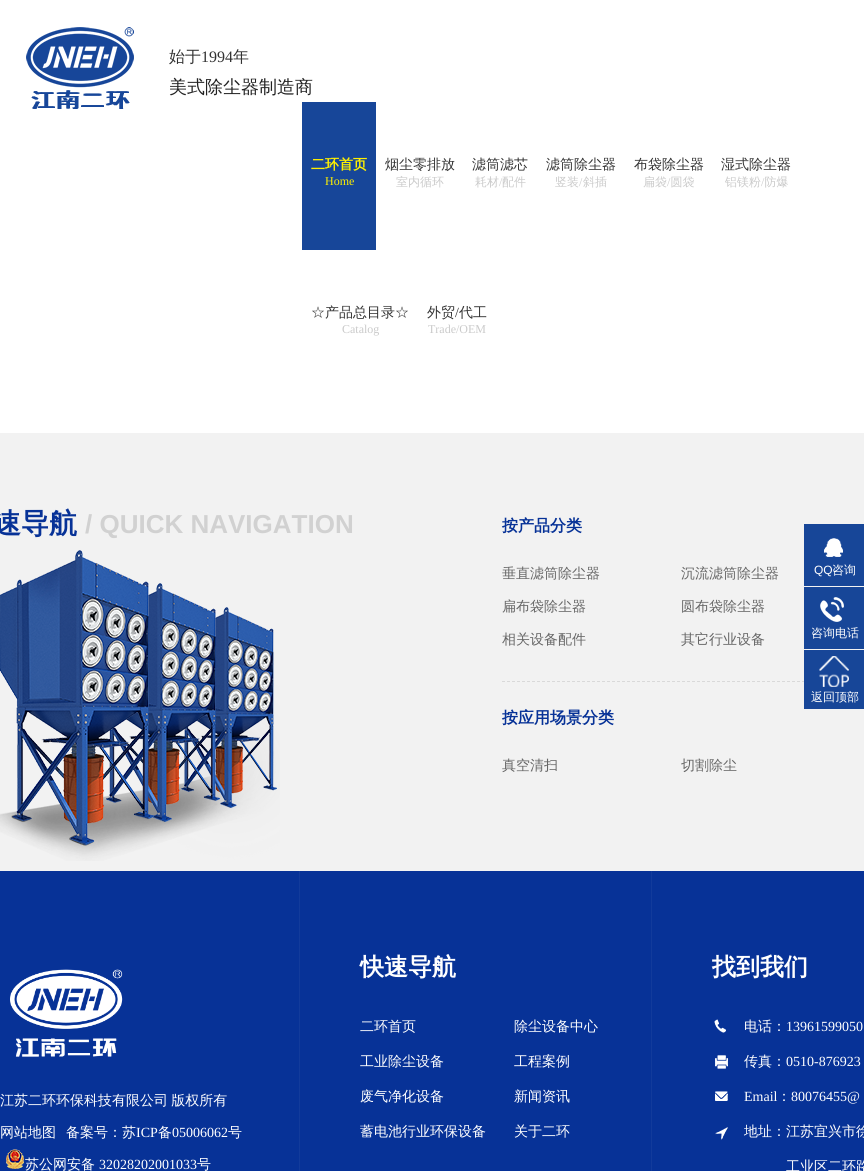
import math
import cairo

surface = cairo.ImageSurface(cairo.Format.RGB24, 864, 1171)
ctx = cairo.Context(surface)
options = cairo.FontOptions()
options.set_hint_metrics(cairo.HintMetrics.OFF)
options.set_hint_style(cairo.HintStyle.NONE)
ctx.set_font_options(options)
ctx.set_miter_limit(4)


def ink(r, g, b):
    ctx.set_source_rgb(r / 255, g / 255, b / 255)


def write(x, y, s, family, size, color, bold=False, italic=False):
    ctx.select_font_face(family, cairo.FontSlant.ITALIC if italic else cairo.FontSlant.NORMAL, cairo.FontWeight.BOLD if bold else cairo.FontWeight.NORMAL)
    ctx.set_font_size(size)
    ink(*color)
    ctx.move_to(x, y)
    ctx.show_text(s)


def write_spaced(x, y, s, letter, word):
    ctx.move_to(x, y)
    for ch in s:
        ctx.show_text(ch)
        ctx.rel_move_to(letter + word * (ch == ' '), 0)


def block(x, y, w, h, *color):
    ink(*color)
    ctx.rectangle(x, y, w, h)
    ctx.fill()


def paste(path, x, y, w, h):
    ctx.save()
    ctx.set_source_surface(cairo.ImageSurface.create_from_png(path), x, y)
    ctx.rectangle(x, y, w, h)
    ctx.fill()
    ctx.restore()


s1 = dict(family="WenQuanYi Zen Hei Medium", size=16, color=(51, 51, 51))
s2 = dict(family="Liberation Serif", size=16, color=(51, 51, 51))
s3 = dict(family="WenQuanYi Zen Hei Medium", size=18, color=(34, 34, 34))
s4 = dict(family="WenQuanYi Zen Hei", size=14, color=(255, 240, 0), bold=True)
s5 = dict(family="Liberation Serif", size=12, color=(255, 240, 0))
s6 = dict(family="WenQuanYi Zen Hei Medium", size=14, color=(51, 51, 51))
s7 = dict(family="WenQuanYi Zen Hei Medium", size=12, color=(202, 202, 202))
s8 = dict(family="Liberation Serif", size=12, color=(202, 202, 202))
s9 = dict(family="Liberation Serif", size=14, color=(51, 51, 51))
s10 = dict(family="WenQuanYi Zen Hei", size=28, color=(7, 50, 151), bold=True)
s11 = dict(family="Liberation Sans", size=26, color=(209, 209, 209), bold=True)
s12 = dict(family="WenQuanYi Zen Hei", size=16, color=(7, 50, 151), bold=True)
s13 = dict(family="WenQuanYi Zen Hei Medium", size=14, color=(102, 102, 102))
s14 = dict(family="WenQuanYi Zen Hei Medium", size=14, color=(255, 255, 255))
s15 = dict(family="Liberation Serif", size=14, color=(255, 255, 255))
s16 = dict(family="WenQuanYi Zen Hei", size=24, color=(255, 255, 255), bold=True)
s17 = dict(family="Liberation Sans", size=12, color=(255, 255, 255))
s18 = dict(family="WenQuanYi Zen Hei Medium", size=12, color=(255, 255, 255))

ink(255, 255, 255)
ctx.paint()
paste("pic1.png", 26, 27, 108, 82)
write(169, 62, "始于", **s1)
write(201, 62, "1994", **s2)
write(233, 62, "年", **s1)
write(169, 93, "美式除尘器制造商", **s3)
block(302, 102, 74, 148, 23, 70, 153)
write(311, 169, "二环首页", **s4)
write(325, 185, "Home", **s5)
write(385, 169, "烟尘零排放", **s6)
write(396, 186, "室内循环", **s7)
write(472, 169, "滤筒滤芯", **s6)
write(475, 186, "耗材", **s7)
write(499, 186, "/", **s8)
write(502, 186, "配件", **s7)
write(546, 169, "滤筒除尘器", **s6)
write(555, 186, "竖装", **s7)
write(579, 186, "/", **s8)
write(583, 186, "斜插", **s7)
write(634, 169, "布袋除尘器", **s6)
write(643, 186, "扁袋 圆袋", **s7)
write(667, 186, "/", **s8)
write(721, 169, "湿式除尘器", **s6)
write(725, 186, "铝镁粉 防爆", **s7)
write(761, 186, "/", **s8)
write(311, 317, "☆产品总目录☆", **s6)
write(342, 333, "Catalog", **s8)
write(427, 317, "外贸", **s6)
write(455, 317, "/", **s9)
write(459, 317, "代工", **s6)
write(428, 333, "Trade/OEM", **s8)
block(0, 433, 864, 438, 242, 242, 242)
write(-7, 533, "速导航", **s10)
write(85, 533, "/ QUICK NAVIGATION", **s11)
paste("pic2.png", 0, 550, 280, 311)
ctx.new_path()
ctx.move_to(502, 681.5)
ctx.line_to(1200, 681.5)
ink(217, 217, 217)
ctx.set_line_width(1)
ctx.set_dash([3, 2])
ctx.stroke()
write(502, 531, "按产品分类", **s12)
write(502, 578, "垂直滤筒除尘器", **s13)
write(681, 578, "沉流滤筒除尘器", **s13)
write(502, 611, "扁布袋除尘器", **s13)
write(681, 611, "圆布袋除尘器", **s13)
write(502, 644, "相关设备配件", **s13)
write(681, 644, "其它行业设备", **s13)
write(502, 723, "按应用场景分类", **s12)
write(502, 770, "真空清扫", **s13)
write(681, 770, "切割除尘", **s13)
block(0, 871, 864, 300, 7, 50, 151)
block(299, 871, 1, 300, 18, 59, 155)
paste("pic3.png", 10, 969, 113, 88)
ink(255, 255, 255)
write_spaced(0, 1105, "江苏二环环保科技有限公司 版权所有", 0, -1)
write(0, 1137, "网站地图", **s14)
write(66, 1137, "备案号：苏", **s14)
write(136, 1137, "ICP", **s15)
write(158, 1137, "备", **s14)
write(172, 1137, "05006062", **s15)
write(228, 1137, "号", **s14)
paste("pic4.png", 6, 1149, 18, 20)
write(25, 1169, "苏公网安备", **s14)
write(99, 1169, "32028202001033", **s15)
write(197, 1169, "号", **s14)
block(651, 871, 1, 300, 18, 59, 155)
write(360, 975, "快速导航", **s16)
write(360, 1031, "二环首页", **s14)
write(514, 1031, "除尘设备中心", **s14)
write(360, 1066, "工业除尘设备", **s14)
write(514, 1066, "工程案例", **s14)
write(360, 1101, "废气净化设备", **s14)
write(514, 1101, "新闻资讯", **s14)
write(360, 1136, "蓄电池行业环保设备", **s14)
write(514, 1136, "关于二环", **s14)
write(712, 975, "找到我们", **s16)
paste("pic5.png", 714, 1019, 12, 14)
write(744, 1031, "电话：", **s14)
write(786, 1031, "13961599050", **s15)
paste("pic6.png", 715, 1055, 13, 14)
write(744, 1066, "传真：", **s14)
write(786, 1066, "0510-876923", **s15)
paste("pic7.png", 715, 1091, 13, 10)
write(744, 1101, "Email", **s15)
write(777, 1101, "：", **s14)
write(791, 1101, "80076455@", **s15)
paste("pic8.png", 715, 1127, 13, 13)
write(744, 1136, "地址：江苏宜兴市徐", **s14)
write(786, 1171, "工业区二环路", **s14)
block(804, 524, 60, 62, 23, 70, 152)
paste("pic9.png", 824, 538, 19, 19)
write(814, 574, "QQ", **s17)
write(832, 574, "咨询", **s18)
block(804, 587, 60, 62, 23, 70, 152)
paste("pic10.png", 820, 597, 24, 25)
write(811, 637, "咨询电话", **s18)
block(804, 650, 60, 59, 23, 70, 152)
paste("pic11.png", 819, 656, 30, 31)
write(811, 701, "返回顶部", **s18)
surface.write_to_png("screenshot.png")
